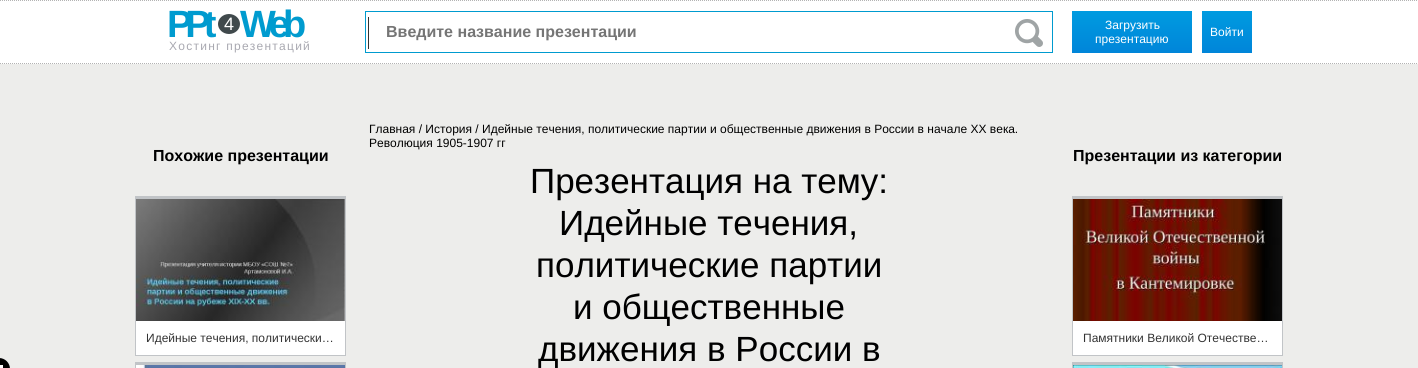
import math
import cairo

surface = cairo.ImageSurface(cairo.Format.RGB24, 1418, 368)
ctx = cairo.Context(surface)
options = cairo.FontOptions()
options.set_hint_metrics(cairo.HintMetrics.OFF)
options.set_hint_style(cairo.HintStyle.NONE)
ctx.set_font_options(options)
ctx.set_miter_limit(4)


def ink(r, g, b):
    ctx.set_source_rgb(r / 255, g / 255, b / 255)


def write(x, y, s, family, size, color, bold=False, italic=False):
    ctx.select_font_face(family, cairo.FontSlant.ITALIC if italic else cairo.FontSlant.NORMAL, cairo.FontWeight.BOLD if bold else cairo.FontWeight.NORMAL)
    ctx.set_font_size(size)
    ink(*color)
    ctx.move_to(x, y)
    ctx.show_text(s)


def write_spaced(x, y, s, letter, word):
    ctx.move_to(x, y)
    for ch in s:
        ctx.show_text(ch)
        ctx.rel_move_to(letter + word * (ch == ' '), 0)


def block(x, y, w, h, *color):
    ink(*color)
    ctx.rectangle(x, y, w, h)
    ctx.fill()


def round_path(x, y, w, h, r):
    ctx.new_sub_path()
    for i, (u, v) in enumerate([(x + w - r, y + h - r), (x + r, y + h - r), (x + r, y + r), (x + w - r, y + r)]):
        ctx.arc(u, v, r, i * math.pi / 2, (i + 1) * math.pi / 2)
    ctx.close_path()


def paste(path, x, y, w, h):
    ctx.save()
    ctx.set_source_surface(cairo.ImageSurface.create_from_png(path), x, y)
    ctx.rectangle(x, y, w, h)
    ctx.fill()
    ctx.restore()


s1 = dict(family="Liberation Sans", size=18, color=(255, 255, 255))
s2 = dict(family="Liberation Sans", size=16, color=(117, 117, 117), bold=True)
s3 = dict(family="Liberation Sans", size=12, color=(255, 255, 255))
s4 = dict(family="Liberation Sans", size=16, color=(0, 0, 0), bold=True)
s5 = dict(family="Liberation Sans", size=12, color=(51, 51, 51))
s6 = dict(family="Liberation Sans", size=12, color=(0, 0, 0))
s7 = dict(family="Liberation Sans", size=35, color=(0, 0, 0))

ink(237, 237, 235)
ctx.paint()
block(0, 0, 1418, 64, 255, 255, 255)
ctx.new_path()
ctx.move_to(0, 0.5)
ctx.line_to(1418, 0.5)
ink(179, 179, 179)
ctx.set_line_width(1)
ctx.set_dash([1, 1])
ctx.stroke()
ctx.new_path()
ctx.move_to(0, 63.5)
ctx.line_to(1418, 63.5)
ctx.stroke()
ctx.select_font_face("Liberation Sans", cairo.FontSlant.NORMAL, cairo.FontWeight.BOLD)
ctx.set_font_size(38)
ink(0, 155, 207)
write_spaced(167, 37, "PPt", -7, 0)
ink(64, 73, 76)
ctx.new_path()
ctx.move_to(229, 14)
ctx.curve_to(235, 14, 240, 18.5, 240, 24)
ctx.curve_to(240, 29.5, 235, 34, 229, 34)
ctx.curve_to(223, 34, 218, 29.5, 218, 24)
ctx.curve_to(218, 18.5, 223, 14, 229, 14)
ctx.close_path()
ctx.fill()
write(224, 30, "4", **s1)
ctx.select_font_face("Liberation Sans", cairo.FontSlant.NORMAL, cairo.FontWeight.BOLD)
ctx.set_font_size(38)
ink(0, 155, 207)
write_spaced(240, 37, "Web", -7, 0)
ctx.select_font_face("Liberation Sans")
ctx.set_font_size(12)
ink(169, 169, 177)
write_spaced(169, 50, "Хостинг презентаций", 1.25, 0)
ctx.rectangle(365.5, 11.5, 687, 41)
ink(0, 155, 207)
ctx.set_dash([])
ctx.stroke()
block(368, 17, 1, 32, 51, 51, 51)
write(386, 37, "Введите название презентации", **s2)
paste("pic1.png", 1015, 19, 28, 28)
gradient = cairo.LinearGradient(1132, 11, 1132, 53)
gradient.add_color_stop_rgba(0, 0, 0.608, 0.878, 1)
gradient.add_color_stop_rgba(1, 0, 0.522, 0.851, 1)
ctx.set_source(gradient)
ctx.rectangle(1072, 11, 120, 42)
ctx.fill()
write(1105, 29, "Загрузить", **s3)
write(1095, 43, "презентацию", **s3)
gradient = cairo.LinearGradient(1227, 11, 1227, 53)
gradient.add_color_stop_rgba(0, 0, 0.608, 0.878, 1)
gradient.add_color_stop_rgba(1, 0, 0.522, 0.851, 1)
ctx.set_source(gradient)
ctx.rectangle(1202, 11, 50, 42)
ctx.fill()
write(1210, 36, "Войти", **s3)
ink(0, 0, 0)
round_path(-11, 358, 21, 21, 11)
ctx.fill()
block(0, 365, 3, 3, 255, 255, 255)
write(153, 161, "Похожие презентации", **s4)
block(135, 196, 211, 3, 193, 196, 199)
block(345, 196, 1, 160, 193, 196, 199)
block(135, 355, 211, 1, 193, 196, 199)
block(135, 196, 1, 160, 193, 196, 199)
paste("pic2.png", 136, 199, 209, 122)
block(136, 321, 209, 34, 255, 255, 255)
write(146, 342, "Идейные течения, политически…", **s5)
block(136, 365, 3, 3, 255, 255, 255)
block(135, 362, 211, 3, 193, 196, 199)
block(345, 362, 1, 6, 193, 196, 199)
block(135, 362, 1, 6, 193, 196, 199)
paste("pic3.png", 139, 365, 206, 3)
write(369, 133, "Главная / История / Идейные течения, политические партии и общественные движения в России в начале XX века.", **s6)
write(369, 147, "Революция 1905-1907 гг", **s6)
write(530, 193, "Презентация на тему:", **s7)
write(559, 235, "Идейные течения,", **s7)
write(536, 277, "политические партии", **s7)
write(573, 319, "и общественные", **s7)
write(538, 361, "движения в России в", **s7)
write(1073, 161, "Презентации из категории", **s4)
block(1072, 196, 211, 3, 193, 196, 199)
block(1282, 196, 1, 160, 193, 196, 199)
block(1072, 355, 211, 1, 193, 196, 199)
block(1072, 196, 1, 160, 193, 196, 199)
paste("pic4.png", 1073, 199, 209, 122)
block(1073, 321, 209, 34, 255, 255, 255)
write(1083, 342, "Памятники Великой Отечестве…", **s5)
block(1072, 362, 211, 3, 193, 196, 199)
block(1282, 362, 1, 6, 193, 196, 199)
block(1072, 362, 1, 6, 193, 196, 199)
paste("pic5.png", 1073, 365, 209, 3)
surface.write_to_png("screenshot.png")
